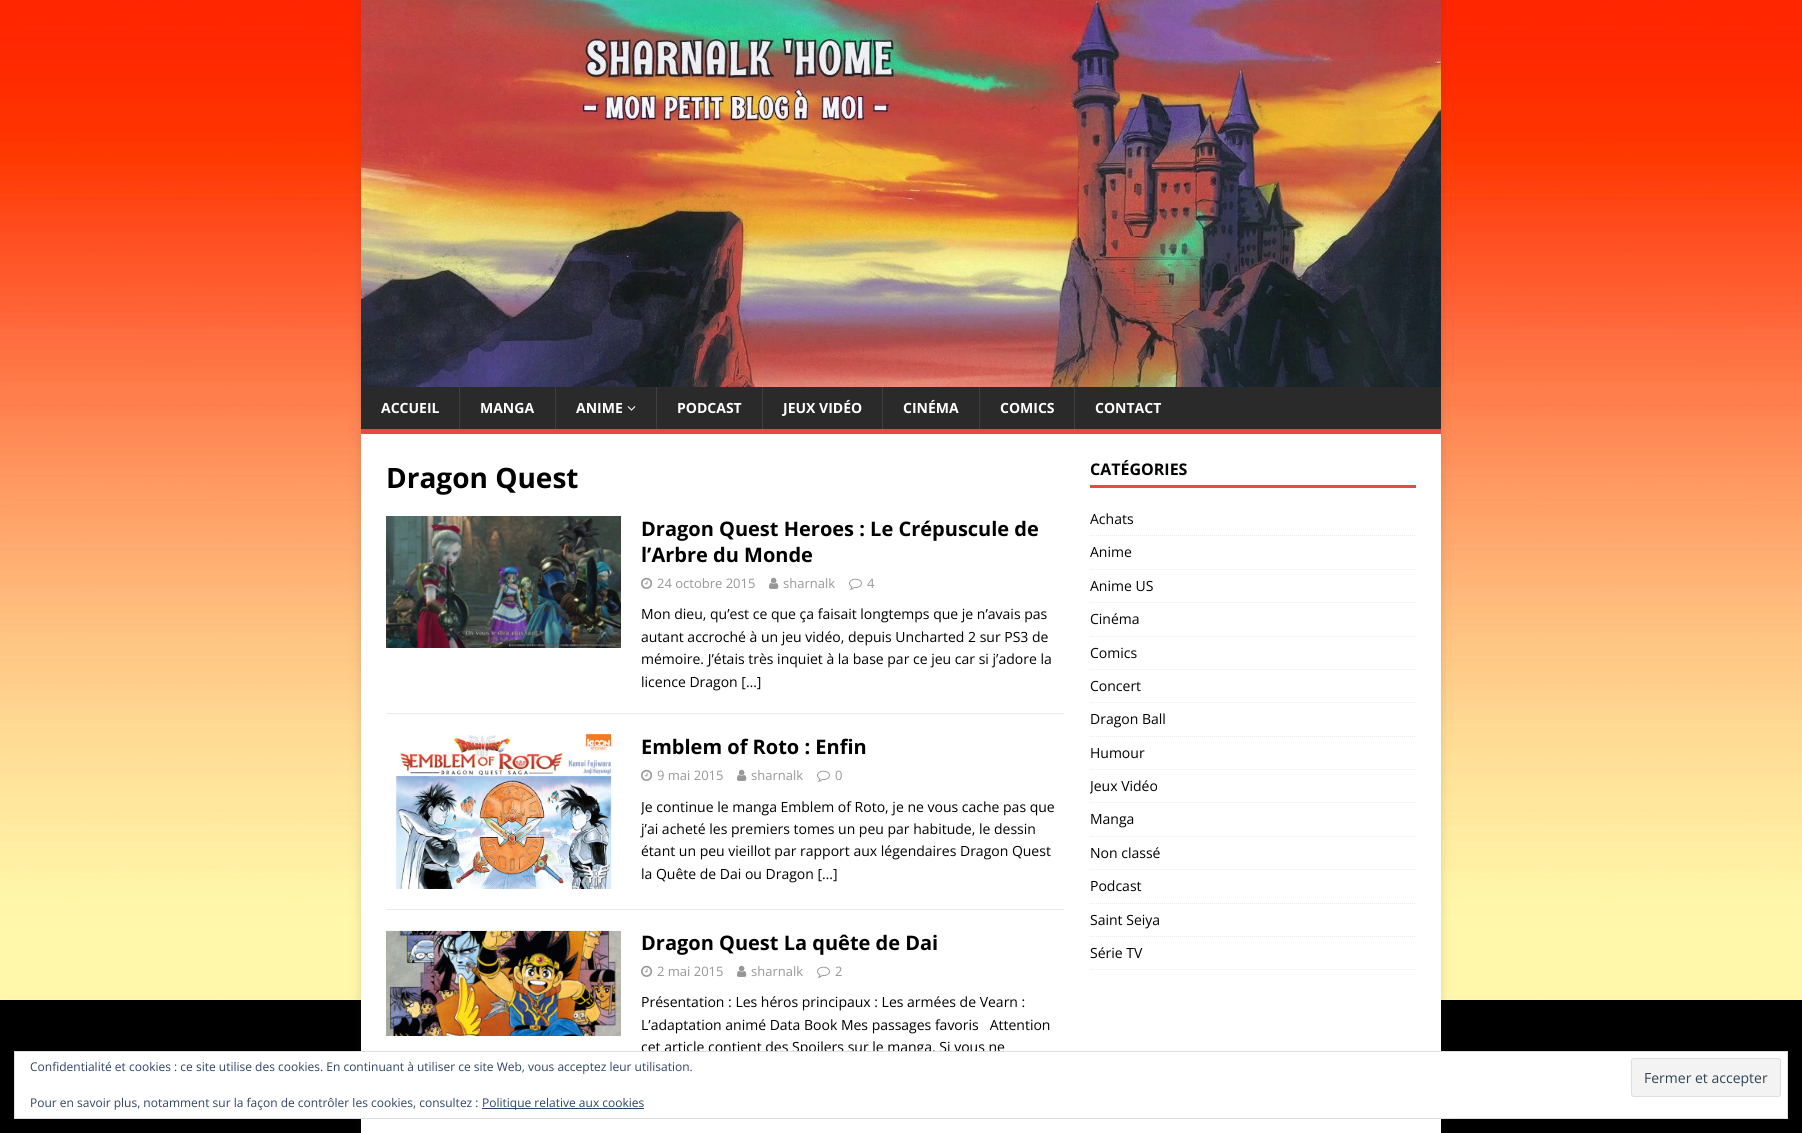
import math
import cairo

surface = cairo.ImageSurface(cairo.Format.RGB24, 1802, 1133)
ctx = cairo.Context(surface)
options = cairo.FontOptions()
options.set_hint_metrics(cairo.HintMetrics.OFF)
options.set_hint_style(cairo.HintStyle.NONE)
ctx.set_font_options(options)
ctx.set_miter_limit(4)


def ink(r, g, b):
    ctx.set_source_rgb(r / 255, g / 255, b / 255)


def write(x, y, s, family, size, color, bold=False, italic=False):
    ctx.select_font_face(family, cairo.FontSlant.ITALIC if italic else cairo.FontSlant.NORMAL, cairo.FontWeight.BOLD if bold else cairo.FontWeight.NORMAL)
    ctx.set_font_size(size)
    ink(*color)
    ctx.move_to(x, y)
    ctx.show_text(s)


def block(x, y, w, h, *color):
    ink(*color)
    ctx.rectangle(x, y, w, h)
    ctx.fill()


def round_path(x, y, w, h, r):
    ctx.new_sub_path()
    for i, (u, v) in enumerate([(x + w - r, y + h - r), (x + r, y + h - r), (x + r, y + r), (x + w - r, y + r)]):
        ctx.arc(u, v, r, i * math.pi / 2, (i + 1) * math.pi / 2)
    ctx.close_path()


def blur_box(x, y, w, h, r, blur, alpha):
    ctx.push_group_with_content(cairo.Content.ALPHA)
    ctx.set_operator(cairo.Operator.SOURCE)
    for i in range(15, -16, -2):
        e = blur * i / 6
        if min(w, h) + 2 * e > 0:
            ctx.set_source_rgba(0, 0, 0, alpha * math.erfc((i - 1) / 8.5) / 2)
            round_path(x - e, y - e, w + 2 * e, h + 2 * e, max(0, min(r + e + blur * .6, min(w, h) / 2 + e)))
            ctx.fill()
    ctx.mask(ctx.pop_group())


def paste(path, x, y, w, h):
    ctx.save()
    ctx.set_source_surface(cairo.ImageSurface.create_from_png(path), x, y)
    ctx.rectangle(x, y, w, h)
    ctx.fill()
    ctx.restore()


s1 = dict(family="Open Sans", size=14, color=(255, 255, 255), bold=True)
s2 = dict(family="Open Sans", size=28, color=(0, 0, 0), bold=True)
s3 = dict(family="Open Sans", size=20, color=(0, 0, 0), bold=True)
s4 = dict(family="Open Sans", size=13, color=(151, 151, 151))
s5 = dict(family="Open Sans", size=14, color=(0, 0, 0))
s6 = dict(family="Open Sans", size=16, color=(0, 0, 0), bold=True)
s7 = dict(family="Open Sans", size=12, color=(46, 68, 103))
s8 = dict(family="Open Sans", size=14, color=(46, 68, 83))

ink(0, 0, 0)
ctx.paint()
paste("pic1.png", 0, 0, 1802, 1000)
ink(50, 50, 50)
blur_box(361, -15, 1080, 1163, 0, 5, 0.17)
paste("pic2.png", 361, 0, 1080, 387)
block(361, 387, 1080, 42, 42, 42, 42)
block(361, 429, 1080, 5, 230, 73, 70)
write(381, 413, "ACCUEIL", **s1)
block(459, 387, 1, 42, 63, 63, 63)
write(480, 413, "MANGA", **s1)
block(555, 387, 1, 42, 63, 63, 63)
write(576, 413, "ANIME", **s1)
paste("pic3.png", 627, 406, 9, 5)
block(656, 387, 1, 42, 63, 63, 63)
write(677, 413, "PODCAST", **s1)
block(762, 387, 1, 42, 63, 63, 63)
write(783, 413, "JEUX VIDÉO", **s1)
block(882, 387, 1, 42, 63, 63, 63)
write(903, 413, "CINÉMA", **s1)
block(979, 387, 1, 42, 63, 63, 63)
write(1000, 413, "COMICS", **s1)
block(1074, 387, 1, 42, 63, 63, 63)
write(1095, 413, "CONTACT", **s1)
block(361, 434, 1080, 699, 255, 255, 255)
write(386, 488, "Dragon Quest", **s2)
block(386, 713, 678, 1, 235, 235, 235)
paste("pic4.png", 386, 516, 235, 132)
write(641, 536, "Dragon Quest Heroes : Le Crépuscule de", **s3)
write(641, 562, "l’Arbre du Monde", **s3)
paste("pic5.png", 641, 577, 12, 12)
write(657, 588, "24 octobre 2015", **s4)
paste("pic6.png", 769, 577, 10, 12)
write(783, 588, "sharnalk", **s4)
paste("pic7.png", 849, 578, 13, 12)
write(867, 588, "4", **s4)
write(641, 619, "Mon dieu, qu’est ce que ça faisait longtemps que je n’avais pas", **s5)
write(641, 642, "autant accroché à un jeu vidéo, depuis Uncharted 2 sur PS3 de", **s5)
write(641, 664, "mémoire. J’étais très inquiet à la base par ce jeu car si j’adore la", **s5)
write(641, 687, "licence Dragon […]", **s5)
block(386, 909, 678, 1, 235, 235, 235)
paste("pic8.png", 395, 734, 220, 155)
write(641, 754, "Emblem of Roto : Enfin", **s3)
paste("pic5.png", 641, 769, 12, 12)
write(657, 780, "9 mai 2015", **s4)
paste("pic6.png", 737, 769, 10, 12)
write(751, 780, "sharnalk", **s4)
paste("pic7.png", 817, 770, 13, 12)
write(835, 780, "0", **s4)
ctx.save()
ctx.rectangle(641, 796, 423, 89)
ctx.clip()
write(641, 812, "Je continue le manga Emblem of Roto, je ne vous cache pas que", **s5)
ctx.restore()
write(641, 834, "j’ai acheté les premiers tomes un peu par habitude, le dessin", **s5)
write(641, 856, "étant un peu vieillot par rapport aux légendaires Dragon Quest", **s5)
write(641, 879, "la Quête de Dai ou Dragon […]", **s5)
paste("pic9.png", 386, 930, 235, 106)
write(641, 950, "Dragon Quest La quête de Dai", **s3)
paste("pic5.png", 641, 965, 12, 12)
write(657, 976, "2 mai 2015", **s4)
paste("pic6.png", 737, 965, 10, 12)
write(751, 976, "sharnalk", **s4)
paste("pic7.png", 817, 966, 13, 12)
write(835, 976, "2", **s4)
write(641, 1007, "Présentation : Les héros principaux : Les armées de Vearn :", **s5)
write(641, 1030, "L’adaptation animé Data Book Mes passages favoris   Attention", **s5)
write(641, 1052, "cet article contient des Spoilers sur le manga. Si vous ne", **s5)
block(1090, 485, 326, 3, 230, 73, 70)
write(1090, 475, "CATÉGORIES", **s6)
ctx.new_path()
ctx.move_to(1090, 535.5)
ctx.line_to(1416, 535.5)
ink(235, 235, 235)
ctx.set_line_width(1)
ctx.set_dash([1, 1])
ctx.stroke()
write(1090, 524, "Achats", **s5)
ctx.new_path()
ctx.move_to(1090, 569.5)
ctx.line_to(1416, 569.5)
ink(235, 235, 235)
ctx.stroke()
write(1090, 557, "Anime", **s5)
ctx.new_path()
ctx.move_to(1090, 602.5)
ctx.line_to(1416, 602.5)
ink(235, 235, 235)
ctx.stroke()
write(1090, 591, "Anime US", **s5)
ctx.new_path()
ctx.move_to(1090, 636.5)
ctx.line_to(1416, 636.5)
ink(235, 235, 235)
ctx.stroke()
write(1090, 624, "Cinéma", **s5)
ctx.new_path()
ctx.move_to(1090, 669.5)
ctx.line_to(1416, 669.5)
ink(235, 235, 235)
ctx.stroke()
write(1090, 658, "Comics", **s5)
ctx.new_path()
ctx.move_to(1090, 702.5)
ctx.line_to(1416, 702.5)
ink(235, 235, 235)
ctx.stroke()
write(1090, 691, "Concert", **s5)
ctx.new_path()
ctx.move_to(1090, 736.5)
ctx.line_to(1416, 736.5)
ink(235, 235, 235)
ctx.stroke()
write(1090, 724, "Dragon Ball", **s5)
ctx.new_path()
ctx.move_to(1090, 769.5)
ctx.line_to(1416, 769.5)
ink(235, 235, 235)
ctx.stroke()
write(1090, 758, "Humour", **s5)
ctx.new_path()
ctx.move_to(1090, 802.5)
ctx.line_to(1416, 802.5)
ink(235, 235, 235)
ctx.stroke()
ctx.save()
ctx.rectangle(1090, 459, 326, 511)
ctx.clip()
write(1090, 791, "Jeux Vidéo", **s5)
ctx.restore()
ctx.new_path()
ctx.move_to(1090, 836.5)
ctx.line_to(1416, 836.5)
ctx.stroke()
write(1090, 824, "Manga", **s5)
ctx.new_path()
ctx.move_to(1090, 869.5)
ctx.line_to(1416, 869.5)
ink(235, 235, 235)
ctx.stroke()
write(1090, 858, "Non classé", **s5)
ctx.new_path()
ctx.move_to(1090, 903.5)
ctx.line_to(1416, 903.5)
ink(235, 235, 235)
ctx.stroke()
write(1090, 891, "Podcast", **s5)
ctx.new_path()
ctx.move_to(1090, 936.5)
ctx.line_to(1416, 936.5)
ink(235, 235, 235)
ctx.stroke()
write(1090, 925, "Saint Seiya", **s5)
ctx.new_path()
ctx.move_to(1090, 969.5)
ctx.line_to(1416, 969.5)
ink(235, 235, 235)
ctx.stroke()
write(1090, 958, "Série TV", **s5)
ink(255, 255, 255)
ctx.rectangle(14.5, 1051.5, 1773, 67)
ctx.fill_preserve()
ink(222, 222, 222)
ctx.set_dash([])
ctx.stroke()
write(30, 1071, "Confidentialité et cookies : ce site utilise des cookies. En continuant à utiliser ce site Web, vous acceptez leur utilisation.", **s7)
ink(243, 243, 243)
round_path(1631.5, 1058.5, 149, 38, 2.5)
ctx.fill_preserve()
ink(222, 222, 222)
ctx.stroke()
write(1644, 1083, "Fermer et accepter", **s8)
write(30, 1107, "Pour en savoir plus, notamment sur la façon de contrôler les cookies, consultez :", **s7)
block(482, 1108, 162, 1, 46, 68, 103)
write(482, 1107, "Politique relative aux cookies", **s7)
surface.write_to_png("screenshot.png")
